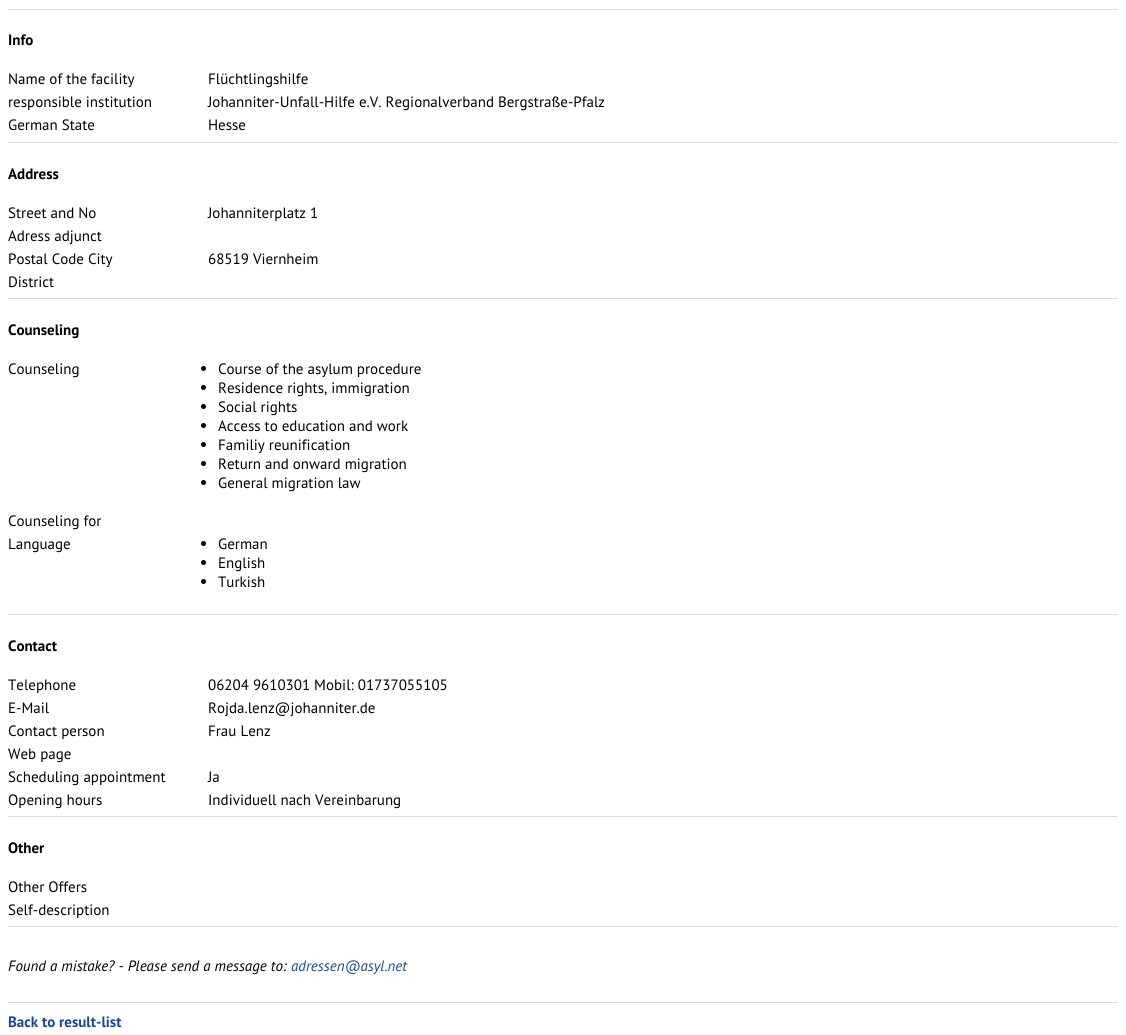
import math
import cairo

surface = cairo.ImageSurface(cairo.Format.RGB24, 1126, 1035)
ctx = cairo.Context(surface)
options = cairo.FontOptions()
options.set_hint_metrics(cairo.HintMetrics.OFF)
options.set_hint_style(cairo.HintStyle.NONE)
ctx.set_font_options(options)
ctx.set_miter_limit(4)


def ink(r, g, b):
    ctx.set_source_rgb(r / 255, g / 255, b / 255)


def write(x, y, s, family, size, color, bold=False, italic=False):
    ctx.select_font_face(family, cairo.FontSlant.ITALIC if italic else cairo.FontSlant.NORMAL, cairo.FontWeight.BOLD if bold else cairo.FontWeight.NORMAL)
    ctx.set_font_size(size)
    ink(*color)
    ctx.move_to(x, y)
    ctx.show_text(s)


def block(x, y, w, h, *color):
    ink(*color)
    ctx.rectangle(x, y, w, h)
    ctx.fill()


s1 = dict(family="PT Sans", size=15, color=(0, 0, 0), bold=True)
s2 = dict(family="PT Sans", size=15, color=(0, 0, 0))
s3 = dict(family="PT Sans", size=15, color=(0, 0, 0), italic=True)
s4 = dict(family="PT Sans", size=15, color=(23, 71, 158), italic=True)
s5 = dict(family="PT Sans", size=15, color=(23, 71, 158), bold=True)

ink(255, 255, 255)
ctx.paint()
block(8, 9, 1110, 1, 221, 221, 221)
write(8, 45, "Info", **s1)
write(8, 84, "Name of the facility", **s2)
write(208, 84, "Flüchtlingshilfe", **s2)
write(8, 107, "responsible institution", **s2)
write(208, 107, "Johanniter-Unfall-Hilfe e.V. Regionalverband Bergstraße-Pfalz", **s2)
write(8, 130, "German State", **s2)
write(208, 130, "Hesse", **s2)
block(8, 142, 1110, 1, 221, 221, 221)
write(8, 179, "Address", **s1)
write(8, 218, "Street and No", **s2)
write(208, 218, "Johanniterplatz 1", **s2)
write(8, 241, "Adress adjunct", **s2)
write(8, 264, "Postal Code City", **s2)
write(208, 264, "68519 Viernheim", **s2)
write(8, 287, "District", **s2)
block(8, 298, 1110, 1, 221, 221, 221)
write(8, 335, "Counseling", **s1)
write(8, 374, "Counseling", **s2)
ctx.new_path()
ctx.arc(203.5, 368.5, 2.5, 0, 2 * math.pi)
ctx.fill()
write(218, 374, "Course of the asylum procedure", **s2)
ctx.new_path()
ctx.arc(203.5, 387.5, 2.5, 0, 2 * math.pi)
ctx.fill()
write(218, 393, "Residence rights, immigration", **s2)
ctx.new_path()
ctx.arc(203.5, 406.5, 2.5, 0, 2 * math.pi)
ctx.fill()
write(218, 412, "Social rights", **s2)
ctx.new_path()
ctx.arc(203.5, 425.5, 2.5, 0, 2 * math.pi)
ctx.fill()
write(218, 431, "Access to education and work", **s2)
ctx.new_path()
ctx.arc(203.5, 444.5, 2.5, 0, 2 * math.pi)
ctx.fill()
write(218, 450, "Familiy reunification", **s2)
ctx.new_path()
ctx.arc(203.5, 463.5, 2.5, 0, 2 * math.pi)
ctx.fill()
write(218, 469, "Return and onward migration", **s2)
ctx.new_path()
ctx.arc(203.5, 482.5, 2.5, 0, 2 * math.pi)
ctx.fill()
write(218, 488, "General migration law", **s2)
write(8, 526, "Counseling for", **s2)
write(8, 549, "Language", **s2)
ctx.new_path()
ctx.arc(203.5, 543.5, 2.5, 0, 2 * math.pi)
ctx.fill()
write(218, 549, "German", **s2)
ctx.new_path()
ctx.arc(203.5, 562.5, 2.5, 0, 2 * math.pi)
ctx.fill()
write(218, 568, "English", **s2)
ctx.new_path()
ctx.arc(203.5, 581.5, 2.5, 0, 2 * math.pi)
ctx.fill()
write(218, 587, "Turkish", **s2)
block(8, 614, 1110, 1, 221, 221, 221)
write(8, 651, "Contact", **s1)
write(8, 690, "Telephone", **s2)
write(208, 690, "06204 9610301 Mobil: 01737055105", **s2)
write(8, 713, "E-Mail", **s2)
write(208, 713, "Rojda.lenz@johanniter.de", **s2)
write(8, 736, "Contact person", **s2)
write(208, 736, "Frau Lenz", **s2)
write(8, 759, "Web page", **s2)
write(8, 782, "Scheduling appointment", **s2)
write(208, 782, "Ja", **s2)
write(8, 805, "Opening hours", **s2)
write(208, 805, "Individuell nach Vereinbarung", **s2)
block(8, 816, 1110, 1, 221, 221, 221)
write(8, 853, "Other", **s1)
write(8, 892, "Other Offers", **s2)
write(8, 915, "Self-description", **s2)
block(8, 926, 1110, 1, 221, 221, 221)
write(8, 971, "Found a mistake? - Please send a message to:", **s3)
write(291, 971, "adressen@asyl.net", **s4)
block(8, 1002, 1110, 1, 221, 221, 221)
write(8, 1027, "Back to result-list", **s5)
surface.write_to_png("screenshot.png")
